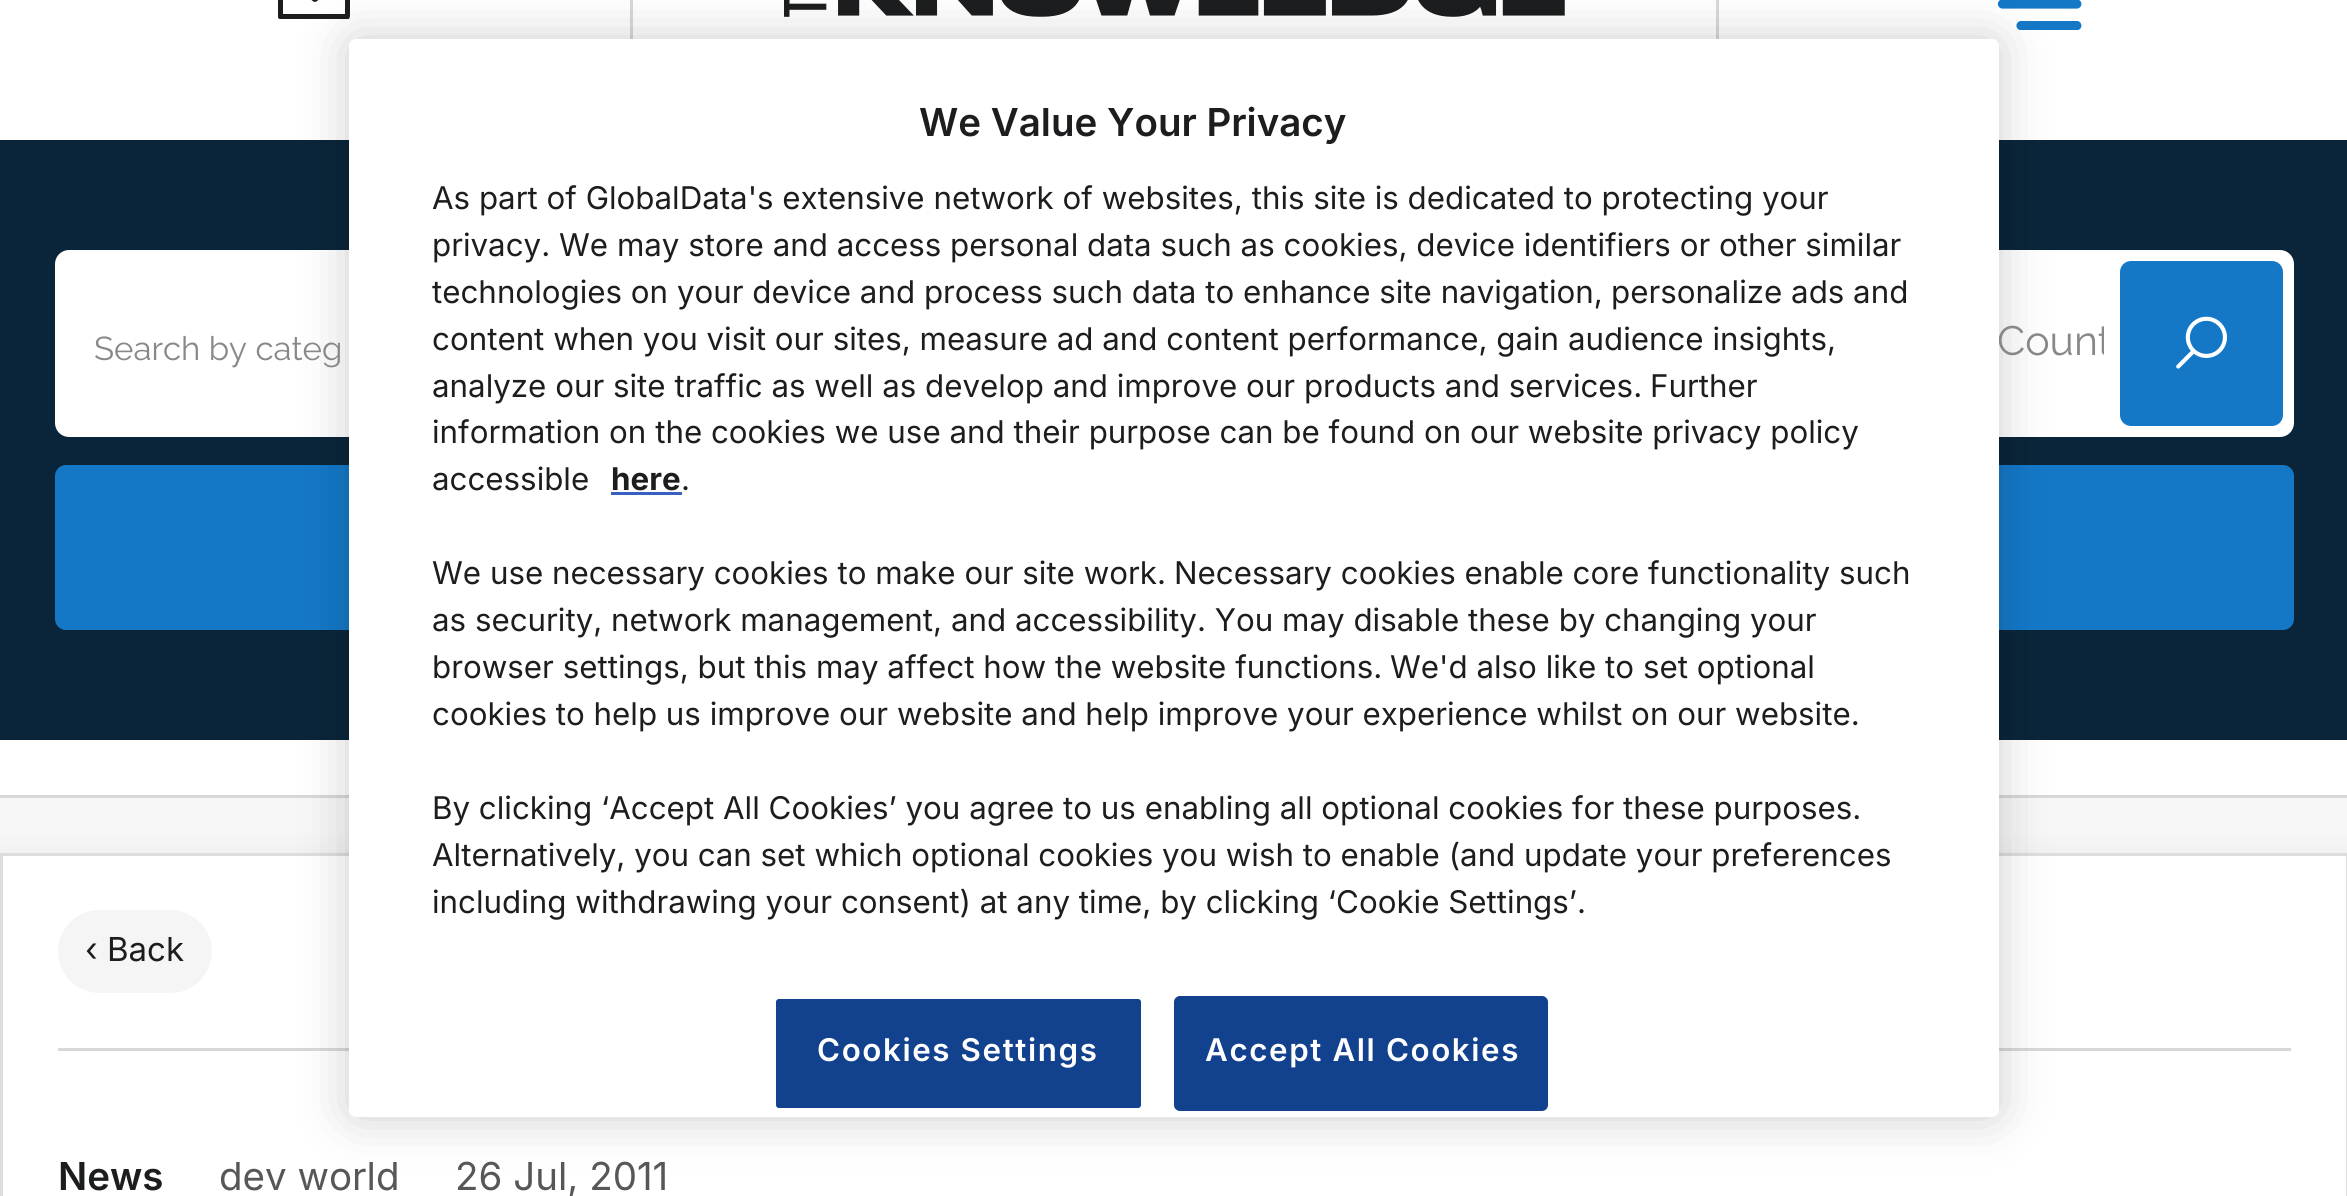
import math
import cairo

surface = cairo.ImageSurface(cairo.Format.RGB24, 2347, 1196)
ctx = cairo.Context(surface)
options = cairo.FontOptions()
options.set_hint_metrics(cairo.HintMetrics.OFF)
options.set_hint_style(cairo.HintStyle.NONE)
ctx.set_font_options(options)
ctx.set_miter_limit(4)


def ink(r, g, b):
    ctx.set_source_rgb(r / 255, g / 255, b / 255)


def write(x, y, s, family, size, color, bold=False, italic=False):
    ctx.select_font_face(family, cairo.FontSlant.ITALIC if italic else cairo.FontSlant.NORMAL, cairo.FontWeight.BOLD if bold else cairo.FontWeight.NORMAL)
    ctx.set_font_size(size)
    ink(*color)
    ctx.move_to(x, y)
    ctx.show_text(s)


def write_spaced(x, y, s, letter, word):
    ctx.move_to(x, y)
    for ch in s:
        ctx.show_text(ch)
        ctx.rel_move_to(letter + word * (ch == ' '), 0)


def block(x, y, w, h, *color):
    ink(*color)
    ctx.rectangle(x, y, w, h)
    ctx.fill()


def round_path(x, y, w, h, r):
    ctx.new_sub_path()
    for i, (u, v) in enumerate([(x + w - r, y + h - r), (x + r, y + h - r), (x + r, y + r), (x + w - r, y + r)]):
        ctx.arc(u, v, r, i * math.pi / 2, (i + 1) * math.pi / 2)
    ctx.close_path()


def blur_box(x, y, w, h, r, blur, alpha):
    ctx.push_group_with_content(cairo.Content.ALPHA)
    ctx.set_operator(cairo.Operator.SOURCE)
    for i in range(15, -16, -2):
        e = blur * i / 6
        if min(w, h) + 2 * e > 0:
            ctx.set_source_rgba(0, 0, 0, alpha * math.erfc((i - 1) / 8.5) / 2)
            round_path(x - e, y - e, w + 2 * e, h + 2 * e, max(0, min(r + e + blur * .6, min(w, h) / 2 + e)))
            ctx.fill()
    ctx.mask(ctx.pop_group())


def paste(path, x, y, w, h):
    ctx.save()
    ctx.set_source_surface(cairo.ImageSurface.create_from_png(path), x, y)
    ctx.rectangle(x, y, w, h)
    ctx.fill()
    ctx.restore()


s1 = dict(family="Raleway Thin", size=41, color=(136, 136, 136))
s2 = dict(family="Inter SemiBold", size=38.5, color=(28, 29, 30))
s3 = dict(family="Inter", size=31.3, color=(28, 29, 30))
s4 = dict(family="Inter", size=31.3, color=(28, 29, 30), bold=True)
s5 = dict(family="Raleway Thin", size=33, color=(136, 136, 136))
s6 = dict(family="Inter", size=33, color=(28, 29, 30))
s7 = dict(family="Inter", size=38.5, color=(85, 87, 89))

ink(247, 247, 247)
ctx.paint()
block(0, 0, 2347, 140, 255, 255, 255)
ctx.save()
ctx.rectangle(278, 0, 74, 19)
ctx.clip()
ink(28, 29, 30)
ctx.new_path()
ctx.move_to(280, -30)
ctx.curve_to(276, -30, 278, -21, 278, -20)
ctx.line_to(278, 9)
ctx.curve_to(278, 10, 276, 19, 280, 19)
ctx.line_to(337, 19)
ctx.curve_to(351, 19, 350, 22, 350, 9)
ctx.line_to(350, -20)
ctx.curve_to(350, -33, 351, -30, 337, -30)
ctx.close_path()
ctx.move_to(287, -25)
ctx.line_to(341, -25)
ctx.line_to(314, -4)
ctx.close_path()
ctx.move_to(283, -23)
ctx.line_to(308, -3)
ctx.curve_to(317, 5, 314, 3, 326, -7)
ctx.line_to(345, -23)
ctx.line_to(345, 14)
ctx.line_to(283, 14)
ctx.close_path()
ctx.fill()
ctx.restore()
block(1716, 0, 3, 39, 216, 216, 216)
block(630, 0, 3, 39, 216, 216, 216)
paste("pic1.png", 784, 0, 781, 17)
paste("pic2.png", 1997, 0, 85, 30)
block(0, 140, 2347, 600, 10, 37, 57)
ink(255, 255, 255)
round_path(55, 250, 2239, 187, 14)
ctx.fill()
ink(20, 120, 199)
round_path(55, 465, 2239, 165, 11)
ctx.fill()
block(0, 740, 2347, 55, 255, 255, 255)
block(0, 795, 2347, 3, 216, 216, 216)
ink(0, 0, 0)
blur_box(0, 853, 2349, 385, 0, 14, 0.05)
ink(255, 255, 255)
ctx.rectangle(1.5, 854.5, 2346, 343)
ctx.fill_preserve()
ink(221, 221, 221)
ctx.set_line_width(3)
ctx.stroke()
block(58, 1048, 2233, 3, 216, 216, 216)
ink(0, 0, 0)
blur_box(349, 39, 1650, 1078, 7, 25, 0.2)
ctx.save()
ctx.rectangle(1865, 316, 239, 50)
ctx.clip()
write(1997, 355, "Count", **s1)
ctx.restore()
ink(255, 255, 255)
round_path(349, 39, 1650, 1078, 7)
ctx.fill()
write(919, 136, "We Value Your Privacy", **s2)
write(432, 209, "As part of GlobalData's extensive network of websites, this site is dedicated to protecting your", **s3)
write(432, 256, "privacy. We may store and access personal data such as cookies, device identifiers or other similar", **s3)
write(432, 303, "technologies on your device and process such data to enhance site navigation,", **s3)
write(1611, 303, "personalize ads and", **s3)
write(432, 350, "content when you visit our sites, measure ad and content performance, gain audience insights,", **s3)
write(432, 397, "analyze our site traffic as well as develop and improve our products and services.", **s3)
write(1650, 397, "Further", **s3)
write(432, 443, "information on the cookies we use and their purpose can be found on our website privacy policy", **s3)
write(432, 490, "accessible", **s3)
write(611, 490, "here", **s4)
block(611, 492, 71, 3, 56, 96, 190)
write(681, 490, ".", **s3)
write(432, 584, "We use necessary cookies to make our site work.", **s3)
write(1174, 584, "Necessary cookies enable core functionality such", **s3)
write(432, 631, "as security, network management, and accessibility. You may disable these by changing your", **s3)
write(432, 678, "browser settings, but this may affect how the website functions.", **s3)
write(1390, 678, "We'd also like to set optional", **s3)
write(432, 725, "cookies to help us improve our website and help improve your experience whilst on our website.", **s3)
write(432, 819, "By clicking ‘Accept All Cookies’ you agree to us enabling all optional cookies for these purposes.", **s3)
write(432, 866, "Alternatively, you can set which optional cookies you wish to enable (and update your preferences", **s3)
write(432, 913, "including withdrawing your consent) at any time, by clicking ‘Cookie Settings’.", **s3)
ink(18, 65, 141)
round_path(774.5, 997.5, 368, 112, 4.5)
ctx.fill_preserve()
ink(255, 255, 255)
ctx.stroke()
ctx.select_font_face("Inter SemiBold")
write_spaced(817, 1061, "Cookies Settings", 1.6, 0)
ink(18, 65, 141)
round_path(1175.5, 997.5, 371, 112, 4.5)
ctx.fill_preserve()
ctx.stroke()
ink(255, 255, 255)
write_spaced(1205, 1061, "Accept All Cookies", 1.6, 0)
write(94, 360, "Search by categ", **s5)
ink(20, 120, 199)
round_path(2120, 261, 163, 165, 11)
ctx.fill()
paste("pic3.png", 2176, 316, 51, 53)
ink(245, 245, 245)
round_path(58, 910, 154, 83, 41.5)
ctx.fill()
write(85, 961, "‹ Back", **s6)
write(58, 1190, "News", **s2)
write(219, 1190, "dev world", **s7)
write(455, 1190, "26 Jul, 2011", **s7)
surface.write_to_png("screenshot.png")
